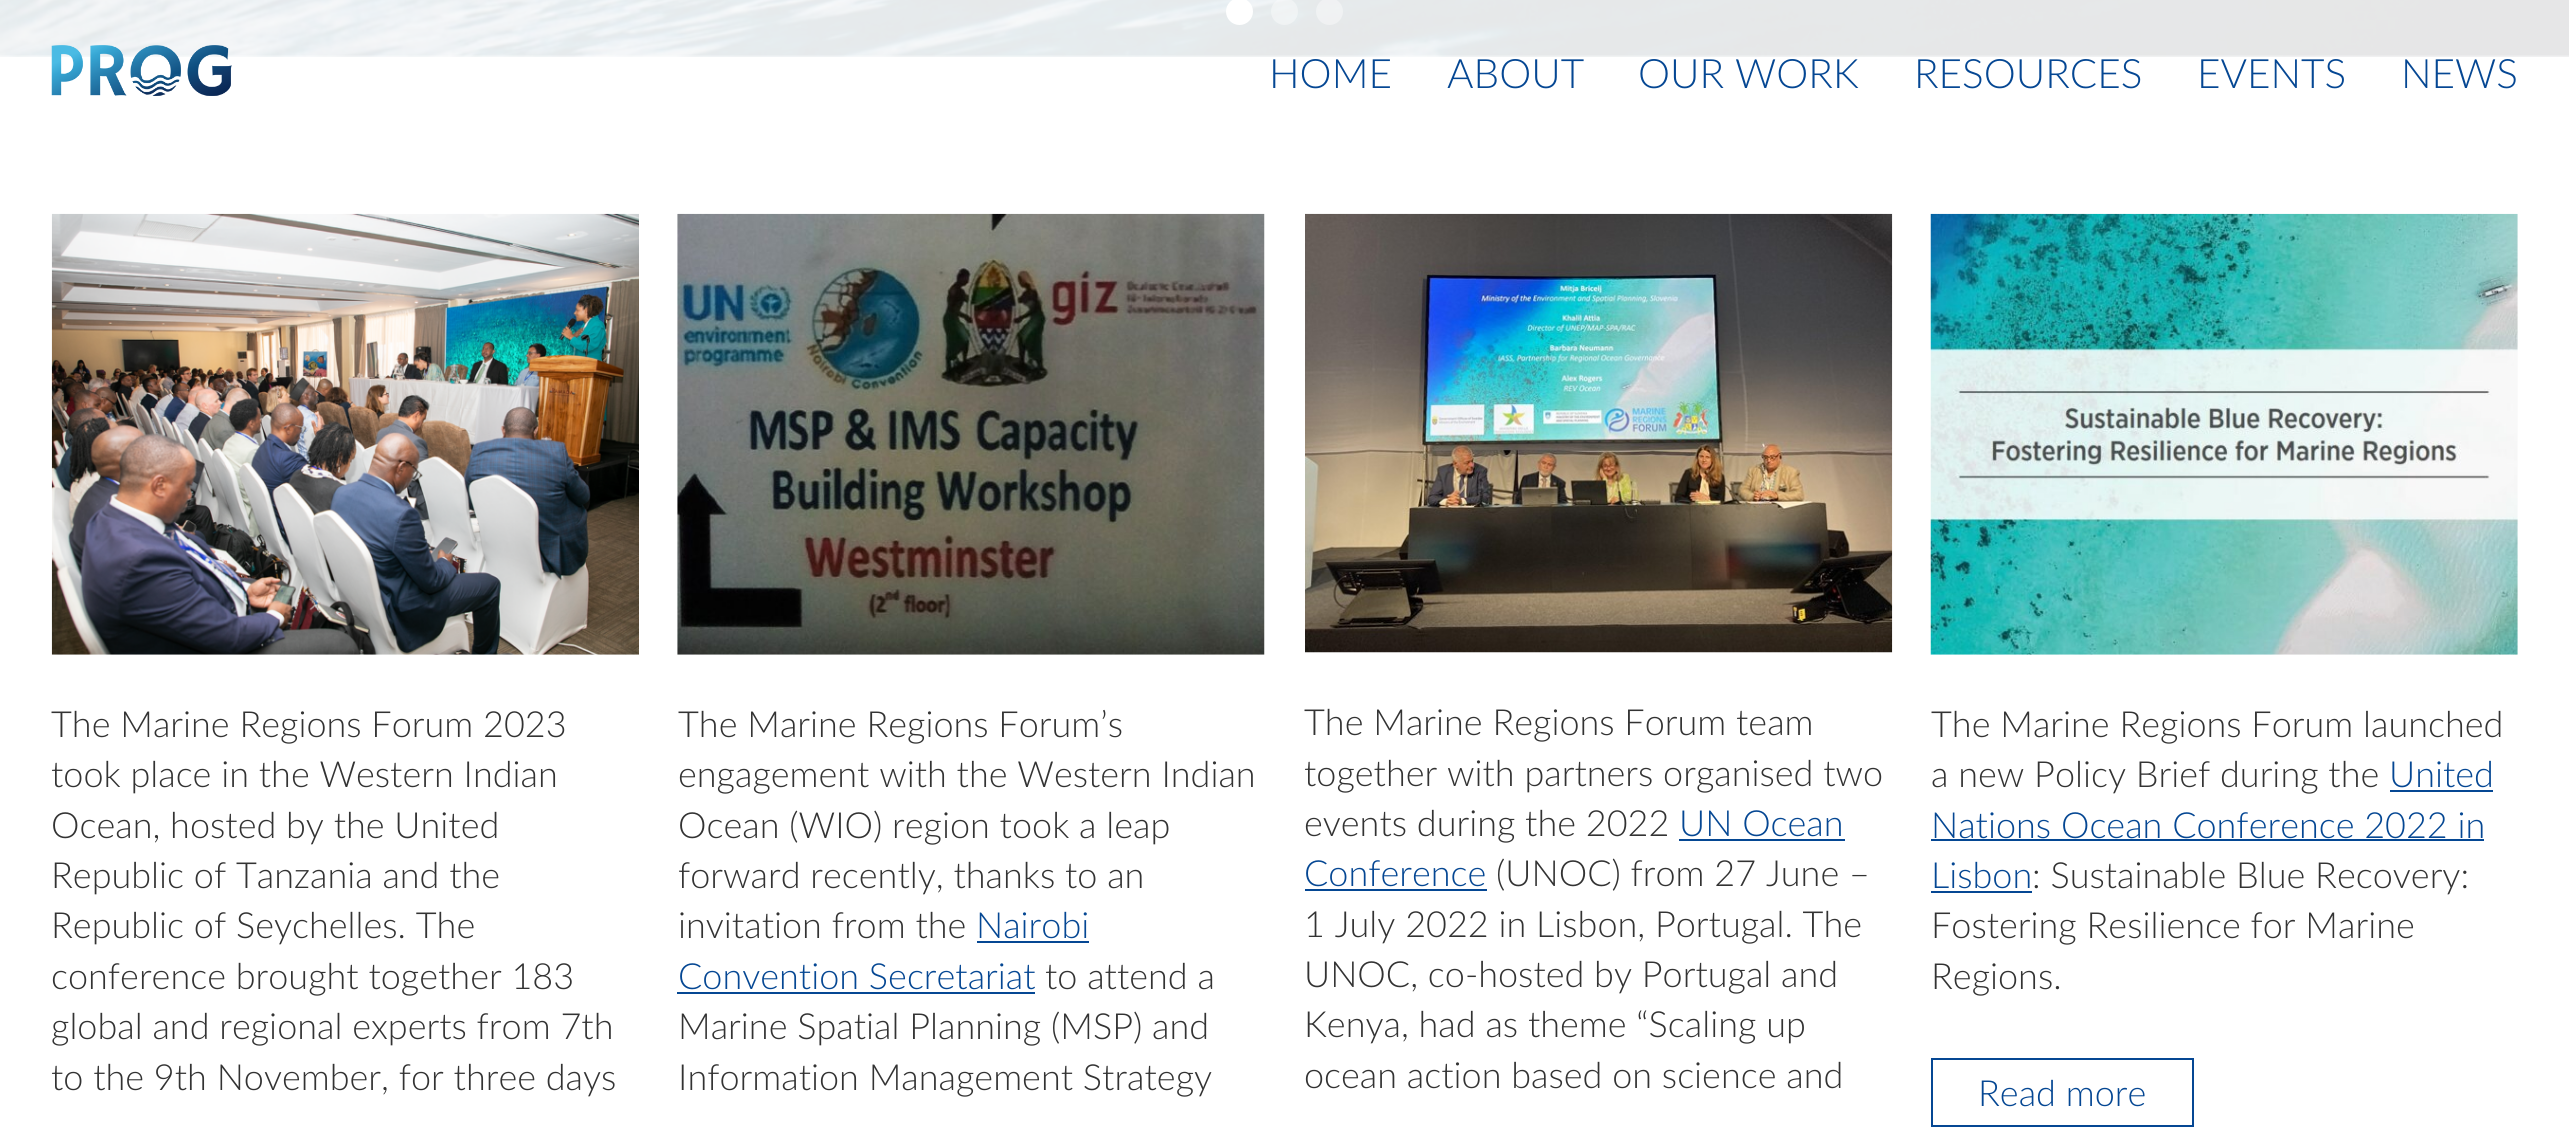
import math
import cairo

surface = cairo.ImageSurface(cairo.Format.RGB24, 2569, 1127)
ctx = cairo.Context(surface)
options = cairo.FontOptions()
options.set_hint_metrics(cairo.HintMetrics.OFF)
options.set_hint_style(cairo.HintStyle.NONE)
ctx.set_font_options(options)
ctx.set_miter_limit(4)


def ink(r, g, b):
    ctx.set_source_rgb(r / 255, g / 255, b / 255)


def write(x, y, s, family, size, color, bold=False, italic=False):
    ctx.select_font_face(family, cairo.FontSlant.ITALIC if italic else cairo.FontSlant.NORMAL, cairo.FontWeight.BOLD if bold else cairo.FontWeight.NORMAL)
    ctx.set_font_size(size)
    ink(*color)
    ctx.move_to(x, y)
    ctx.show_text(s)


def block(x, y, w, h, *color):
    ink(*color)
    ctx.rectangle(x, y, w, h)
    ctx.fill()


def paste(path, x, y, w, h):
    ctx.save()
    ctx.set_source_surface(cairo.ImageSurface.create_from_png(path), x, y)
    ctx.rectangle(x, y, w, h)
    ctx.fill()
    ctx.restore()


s1 = dict(family="Lato Light", size=40.5, color=(5, 71, 147))
s2 = dict(family="Lato Light", size=36, color=(51, 51, 51))
s3 = dict(family="Lato Light", size=36, color=(5, 71, 147))

ink(255, 255, 255)
ctx.paint()
paste("pic1.png", 0, 0, 2569, 57)
ink(255, 255, 255)
ctx.arc(1239.5, 11.5, 13.5, 0, 2 * math.pi)
ctx.fill()
ctx.set_source_rgba(1, 1, 1, 0.38)
ctx.arc(1284.5, 11.5, 13.5, 0, 2 * math.pi)
ctx.fill()
ctx.arc(1329.5, 11.5, 13.5, 0, 2 * math.pi)
ctx.fill()
paste("pic2.png", 51, 45, 181, 51)
write(1269, 88, "HOME", **s1)
write(1447, 88, "ABOUT", **s1)
write(1638, 88, "OUR WORK", **s1)
write(1914, 88, "RESOURCES", **s1)
write(2197, 88, "EVENTS", **s1)
write(2401, 88, "NEWS", **s1)
paste("pic3.png", 51, 213, 588, 442)
write(51, 737, "The Marine Regions Forum 2023", **s2)
write(51, 787, "took place in the Western Indian", **s2)
write(51, 838, "Ocean, hosted by the United", **s2)
write(51, 888, "Republic of Tanzania and the", **s2)
write(51, 938, "Republic of Seychelles. The", **s2)
write(51, 989, "conference brought together 183", **s2)
write(51, 1039, "global and regional experts from 7th", **s2)
write(51, 1090, "to the 9th November, for three days", **s2)
paste("pic4.png", 677, 213, 588, 442)
write(678, 737, "The Marine Regions Forum’s", **s2)
write(678, 787, "engagement with the Western Indian", **s2)
write(678, 838, "Ocean (WIO) region took a leap", **s2)
write(678, 888, "forward recently, thanks to an", **s2)
write(678, 938, "invitation from the", **s2)
write(976, 938, "Nairobi", **s3)
block(977, 941, 112, 2, 5, 71, 147)
write(678, 989, "Convention Secretariat", **s3)
block(677, 992, 358, 2, 5, 71, 147)
write(1045, 989, "to attend a", **s2)
write(678, 1039, "Marine Spatial Planning (MSP) and", **s2)
write(678, 1090, "Information Management Strategy", **s2)
paste("pic5.png", 1305, 213, 588, 440)
write(1304, 735, "The Marine Regions Forum team", **s2)
write(1304, 786, "together with partners organised two", **s2)
write(1304, 836, "events during the 2022", **s2)
write(1679, 836, "UN Ocean", **s3)
block(1679, 839, 166, 2, 5, 71, 147)
write(1304, 886, "Conference", **s3)
block(1305, 889, 182, 2, 5, 71, 147)
write(1496, 886, "(UNOC) from 27 June –", **s2)
write(1304, 937, "1 July 2022 in Lisbon, Portugal. The", **s2)
write(1304, 987, "UNOC, co-hosted by Portugal and", **s2)
write(1304, 1037, "Kenya, had as theme “Scaling up", **s2)
write(1304, 1088, "ocean action based on science and", **s2)
paste("pic6.png", 1930, 213, 588, 442)
write(1931, 737, "The Marine Regions Forum launched", **s2)
write(1931, 787, "a new Policy Brief during the", **s2)
write(2389, 787, "United", **s3)
block(2390, 790, 103, 2, 5, 71, 147)
write(1931, 838, "Nations Ocean Conference 2022 in", **s3)
block(1931, 839, 553, 2, 5, 71, 147)
write(1931, 888, "Lisbon", **s3)
block(1931, 891, 101, 2, 5, 71, 147)
write(2032, 888, ": Sustainable Blue Recovery:", **s2)
write(1931, 938, "Fostering Resilience for Marine", **s2)
write(1931, 989, "Regions.", **s2)
ctx.rectangle(1932, 1059, 261, 67)
ink(5, 71, 147)
ctx.stroke()
write(1978, 1106, "Read more", **s3)
surface.write_to_png("screenshot.png")
